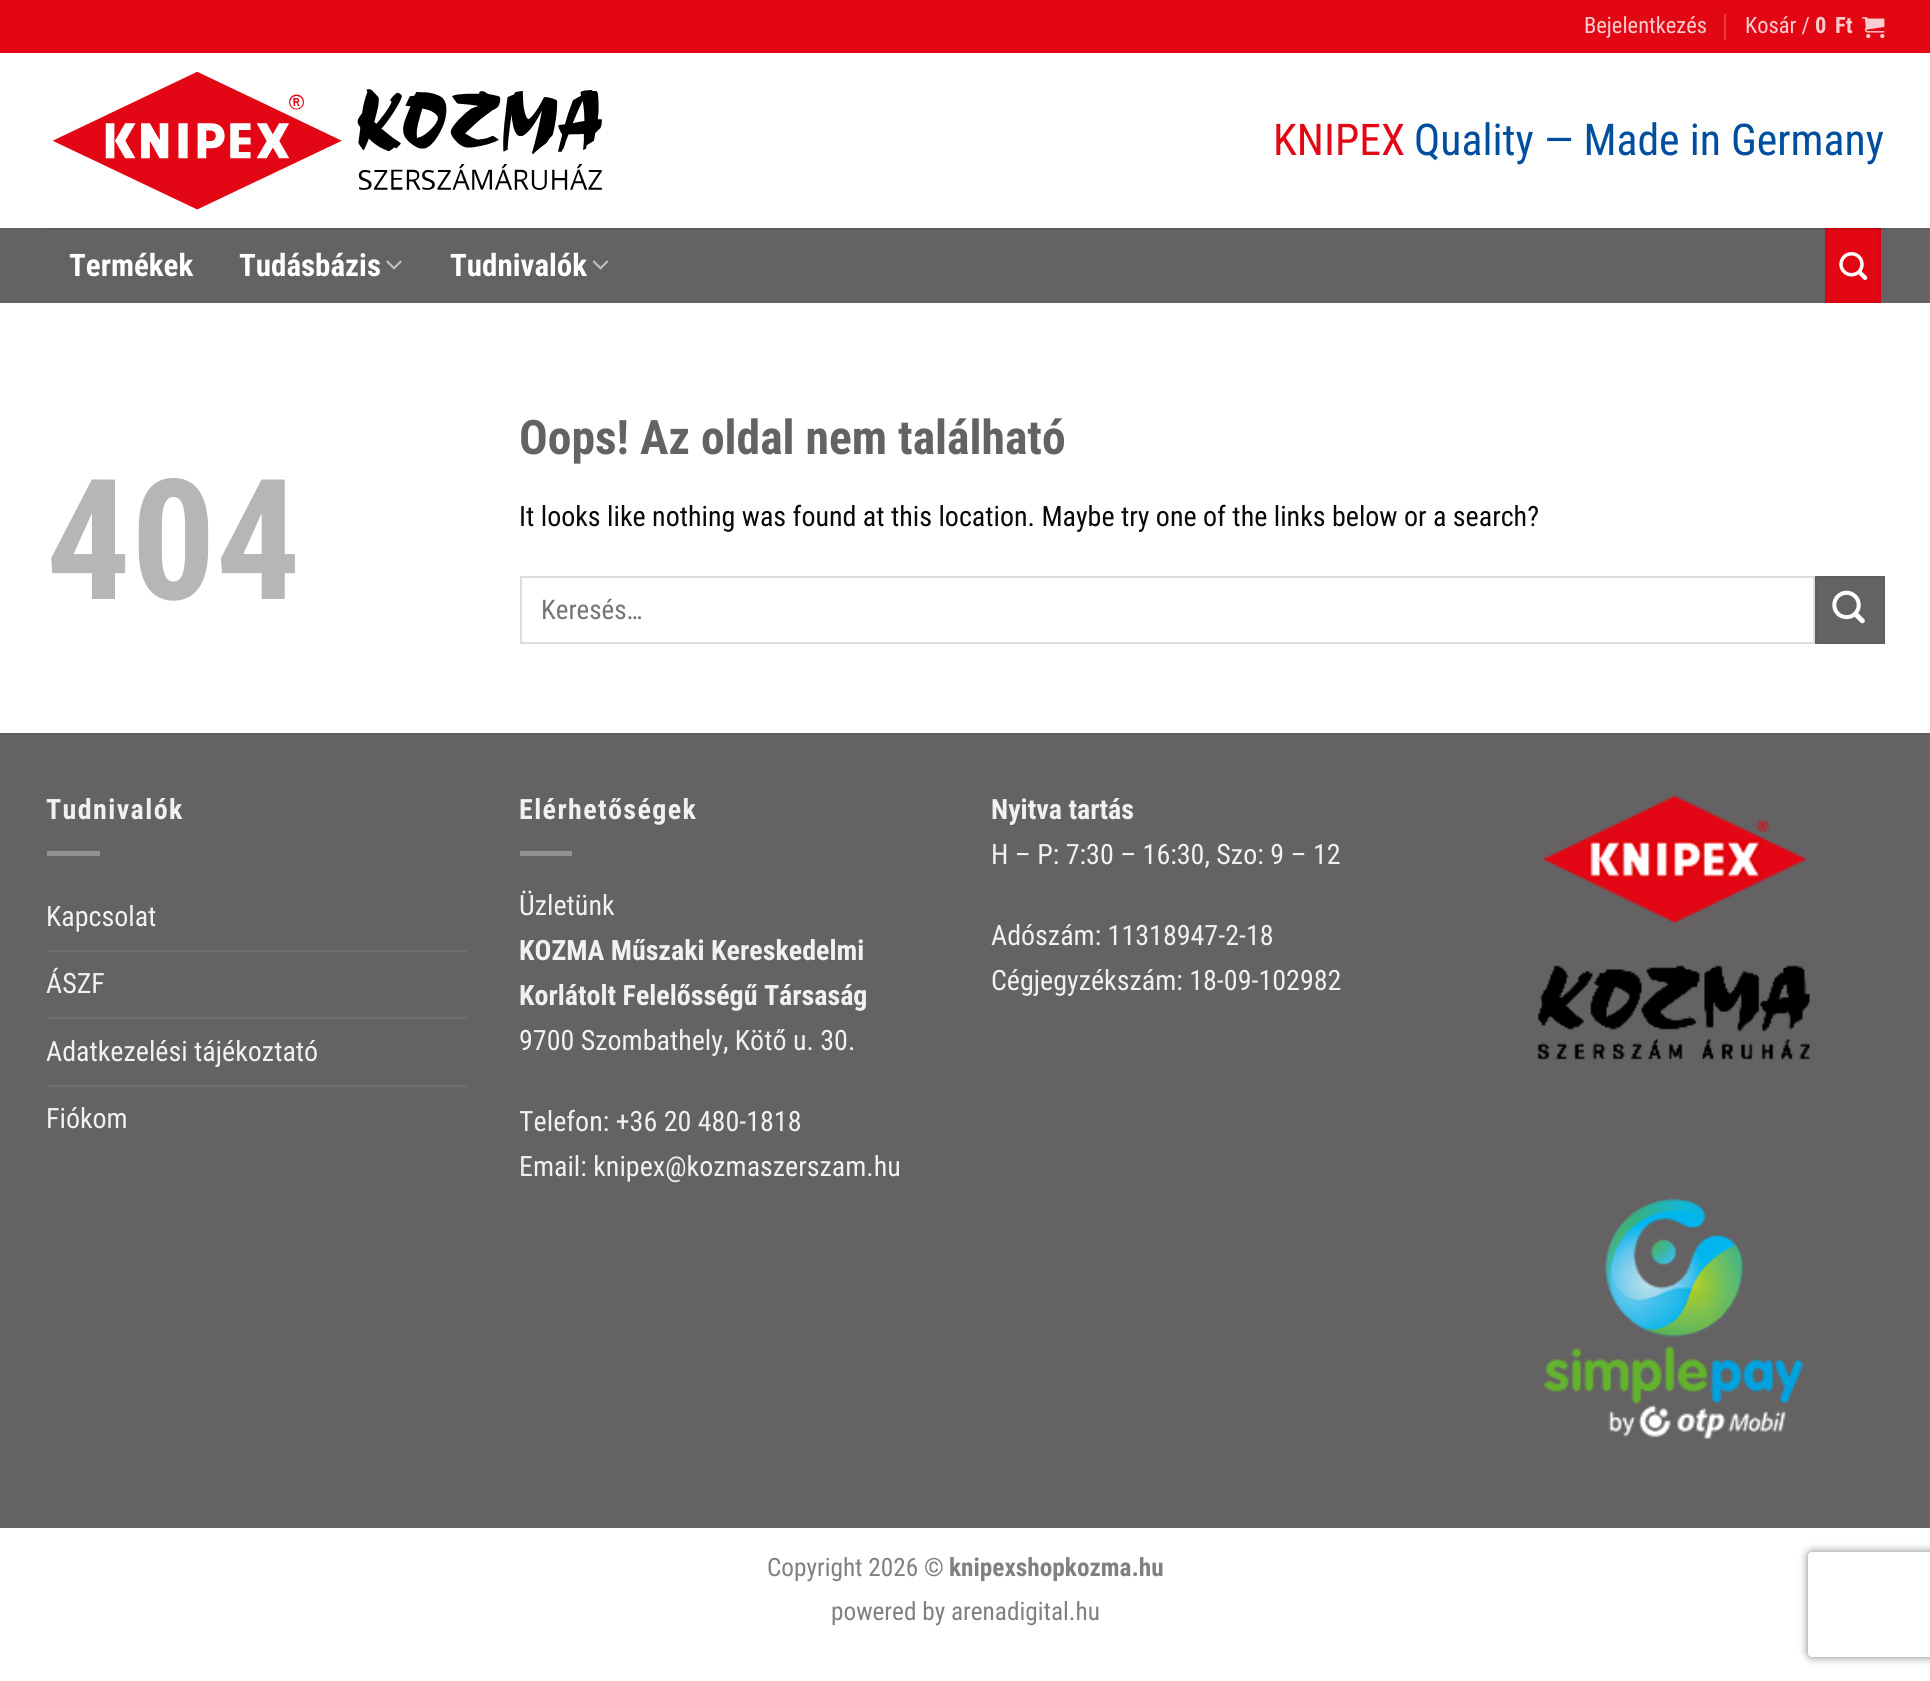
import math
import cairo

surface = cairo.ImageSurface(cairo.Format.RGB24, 1930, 1681)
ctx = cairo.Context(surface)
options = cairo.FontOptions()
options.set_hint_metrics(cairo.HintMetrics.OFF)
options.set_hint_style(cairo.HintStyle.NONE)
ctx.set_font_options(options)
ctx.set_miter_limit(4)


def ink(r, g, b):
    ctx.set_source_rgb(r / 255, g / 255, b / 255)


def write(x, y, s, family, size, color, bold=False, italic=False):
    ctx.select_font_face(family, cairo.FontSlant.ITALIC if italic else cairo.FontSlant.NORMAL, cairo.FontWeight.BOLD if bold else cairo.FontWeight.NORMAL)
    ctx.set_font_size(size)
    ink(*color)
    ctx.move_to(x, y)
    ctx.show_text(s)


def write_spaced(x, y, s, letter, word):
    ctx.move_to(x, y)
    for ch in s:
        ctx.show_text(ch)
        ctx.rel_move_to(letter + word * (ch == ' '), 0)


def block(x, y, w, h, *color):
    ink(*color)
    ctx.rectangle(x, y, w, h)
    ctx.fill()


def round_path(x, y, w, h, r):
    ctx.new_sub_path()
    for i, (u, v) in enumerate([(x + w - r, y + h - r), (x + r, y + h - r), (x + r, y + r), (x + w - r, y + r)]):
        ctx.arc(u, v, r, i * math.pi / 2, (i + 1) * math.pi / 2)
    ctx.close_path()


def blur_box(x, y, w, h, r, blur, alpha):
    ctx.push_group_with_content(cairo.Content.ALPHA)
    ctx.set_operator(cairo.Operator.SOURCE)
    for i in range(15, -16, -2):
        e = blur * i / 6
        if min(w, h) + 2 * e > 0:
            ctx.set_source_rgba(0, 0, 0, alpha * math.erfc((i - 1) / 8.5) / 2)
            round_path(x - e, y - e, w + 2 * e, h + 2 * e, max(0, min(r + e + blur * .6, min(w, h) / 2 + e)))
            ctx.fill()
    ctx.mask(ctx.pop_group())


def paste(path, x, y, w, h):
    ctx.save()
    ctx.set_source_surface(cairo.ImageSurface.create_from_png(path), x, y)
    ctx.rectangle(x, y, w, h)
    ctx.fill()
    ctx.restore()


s1 = dict(family="Roboto Condensed", size=22.5, color=(249, 205, 208))
s2 = dict(family="Roboto Condensed", size=22.5, color=(249, 205, 208), bold=True)
s3 = dict(family="Roboto Condensed", size=43.75, color=(227, 6, 19))
s4 = dict(family="Roboto Condensed", size=43.75, color=(0, 79, 159))
s5 = dict(family="Roboto Condensed", size=31, color=(255, 255, 255), bold=True)
s6 = dict(family="Roboto Condensed", size=168, color=(182, 182, 182), bold=True)
s7 = dict(family="Roboto Condensed", size=47.6, color=(100, 98, 99), bold=True)
s8 = dict(family="Roboto Condensed", size=28, color=(10, 10, 10))
s9 = dict(family="Roboto Condensed", size=27, color=(117, 117, 117))
s10 = dict(family="Roboto Condensed", size=28, color=(241, 241, 241))
s11 = dict(family="Roboto Condensed", size=28, color=(241, 241, 241), bold=True)
s12 = dict(family="Roboto Condensed", size=25.25, color=(128, 128, 128))
s13 = dict(family="Roboto Condensed", size=25.25, color=(128, 128, 128), bold=True)

ink(255, 255, 255)
ctx.paint()
block(0, 0, 1930, 53, 227, 6, 19)
write(1584, 33, "Bejelentkezés", **s1)
block(1724, 14, 2, 26, 233, 56, 66)
write(1745, 33, "Kosár /", **s1)
write(1815, 33, "0", **s2)
write(1835, 33, "Ft", **s2)
paste("pic1.png", 1862, 17, 23, 22)
paste("pic2.png", 52, 72, 550, 138)
write(1273, 155, "KNIPEX", **s3)
write(1414, 155, "Quality — Made in Germany", **s4)
block(0, 228, 1930, 75, 100, 98, 99)
ink(227, 6, 19)
ctx.rectangle(1826, 229, 54, 73)
ctx.fill_preserve()
ink(216, 6, 18)
ctx.stroke()
ctx.set_source_rgba(0.039, 0.039, 0.039, 0.1)
ctx.rectangle(47, 228, 1838, 2)
ctx.fill()
write(69, 276, "Termékek", **s5)
write(239, 276, "Tudásbázis", **s5)
paste("pic3.png", 386, 260, 16, 10)
write(450, 276, "Tudnivalók", **s5)
paste("pic4.png", 592, 260, 17, 10)
paste("pic5.png", 1839, 252, 29, 28)
write(46, 599, "404", **s6)
write(519, 454, "Oops! Az oldal nem található", **s7)
write(519, 526, "It looks like nothing was found at this location. Maybe try one of the links below or a search?", **s8)
ctx.rectangle(521, 577, 1293, 66)
ink(221, 221, 221)
ctx.stroke()
write(541, 619, "Keresés…", **s9)
ink(100, 98, 99)
ctx.rectangle(1816, 577, 68, 66)
ctx.fill_preserve()
ink(95, 93, 94)
ctx.stroke()
paste("pic6.png", 1832, 590, 33, 34)
block(0, 735, 1930, 793, 100, 98, 99)
block(0, 733, 1930, 2, 95, 93, 94)
ctx.select_font_face("Roboto Condensed", cairo.FontSlant.NORMAL, cairo.FontWeight.BOLD)
ctx.set_font_size(28)
ink(241, 241, 241)
write_spaced(46, 819, "Tudnivalók", 1.4, 0)
block(47, 851, 53, 5, 147, 145, 146)
write(46, 926, "Kapcsolat", **s10)
block(47, 950, 420, 2, 112, 111, 111)
write(46, 993, "ÁSZF", **s10)
block(47, 1017, 420, 2, 112, 111, 111)
write(46, 1061, "Adatkezelési tájékoztató", **s10)
block(47, 1085, 420, 2, 112, 111, 111)
write(46, 1128, "Fiókom", **s10)
ctx.select_font_face("Roboto Condensed", cairo.FontSlant.NORMAL, cairo.FontWeight.BOLD)
write_spaced(519, 819, "Elérhetőségek", 1.4, 0)
block(520, 851, 52, 5, 147, 145, 146)
write(519, 915, "Üzletünk", **s10)
write(519, 960, "KOZMA Műszaki Kereskedelmi", **s11)
write(519, 1005, "Korlátolt Felelősségű Társaság", **s11)
write(519, 1050, "9700 Szombathely, Kötő u. 30.", **s10)
write(519, 1131, "Telefon: +36 20 480-1818", **s10)
write(519, 1176, "Email: knipex@kozmaszerszam.hu", **s10)
write(991, 819, "Nyitva tartás", **s11)
write(991, 864, "H – P: 7:30 – 16:30, Szo: 9 – 12", **s10)
write(991, 945, "Adószám: 11318947-2-18", **s10)
write(991, 990, "Cégjegyzékszám: 18-09-102982", **s10)
paste("pic7.png", 1537, 795, 273, 265)
block(1465, 1124, 420, 2, 103, 101, 102)
paste("pic8.png", 1543, 1198, 260, 241)
write(767, 1576, "Copyright 2026 ©", **s12)
write(949, 1576, "knipexshopkozma.hu", **s13)
write(831, 1620, "powered by arenadigital.hu", **s12)
ctx.save()
ctx.set_fill_rule(cairo.FillRule.EVEN_ODD)
ctx.new_path()
ctx.move_to(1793, 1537)
ctx.line_to(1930, 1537)
ctx.line_to(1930, 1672)
ctx.line_to(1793, 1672)
ctx.close_path()
ctx.move_to(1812, 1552)
ctx.line_to(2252, 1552)
ctx.curve_to(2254, 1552, 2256, 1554, 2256, 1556)
ctx.line_to(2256, 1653)
ctx.curve_to(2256, 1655, 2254, 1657, 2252, 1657)
ctx.line_to(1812, 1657)
ctx.curve_to(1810, 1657, 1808, 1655, 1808, 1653)
ctx.line_to(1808, 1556)
ctx.curve_to(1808, 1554, 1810, 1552, 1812, 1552)
ctx.close_path()
ctx.clip()
ink(128, 128, 128)
blur_box(1808, 1552, 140, 105, 4, 4.5, 1)
ctx.restore()
surface.write_to_png("screenshot.png")
